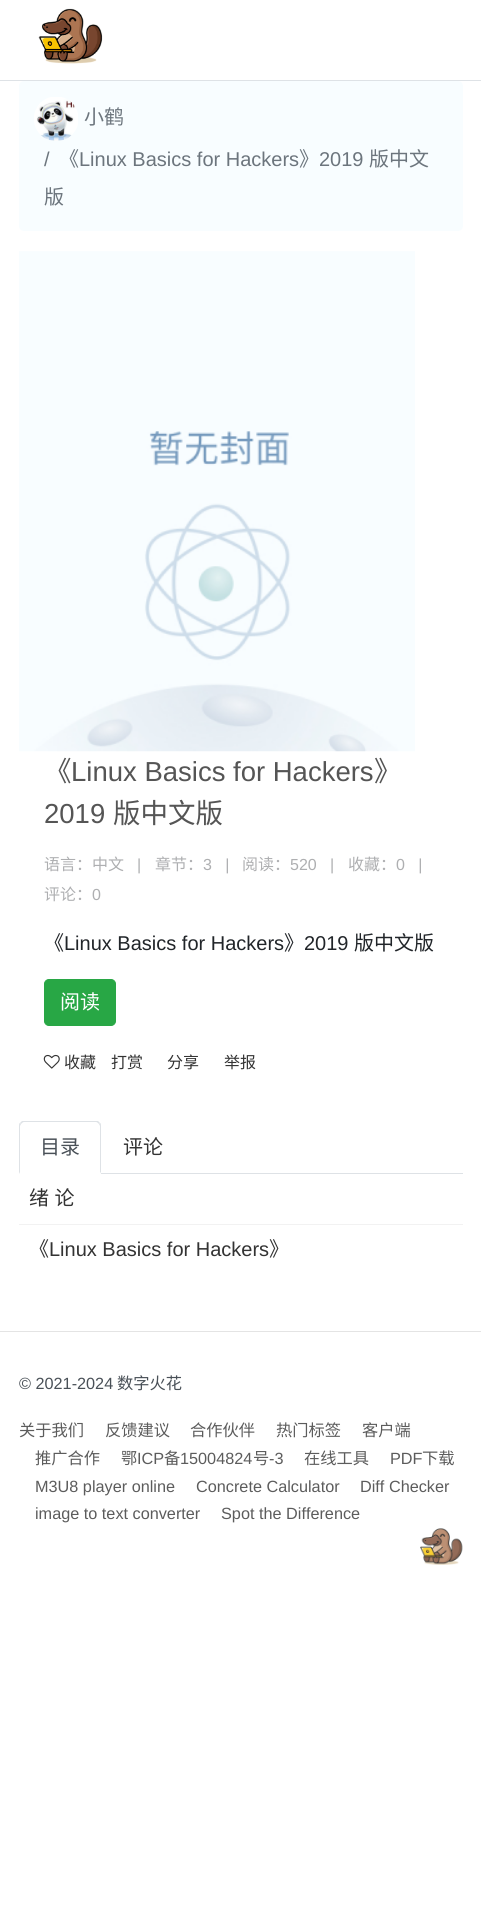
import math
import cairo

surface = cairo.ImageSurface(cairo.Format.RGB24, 481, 1905)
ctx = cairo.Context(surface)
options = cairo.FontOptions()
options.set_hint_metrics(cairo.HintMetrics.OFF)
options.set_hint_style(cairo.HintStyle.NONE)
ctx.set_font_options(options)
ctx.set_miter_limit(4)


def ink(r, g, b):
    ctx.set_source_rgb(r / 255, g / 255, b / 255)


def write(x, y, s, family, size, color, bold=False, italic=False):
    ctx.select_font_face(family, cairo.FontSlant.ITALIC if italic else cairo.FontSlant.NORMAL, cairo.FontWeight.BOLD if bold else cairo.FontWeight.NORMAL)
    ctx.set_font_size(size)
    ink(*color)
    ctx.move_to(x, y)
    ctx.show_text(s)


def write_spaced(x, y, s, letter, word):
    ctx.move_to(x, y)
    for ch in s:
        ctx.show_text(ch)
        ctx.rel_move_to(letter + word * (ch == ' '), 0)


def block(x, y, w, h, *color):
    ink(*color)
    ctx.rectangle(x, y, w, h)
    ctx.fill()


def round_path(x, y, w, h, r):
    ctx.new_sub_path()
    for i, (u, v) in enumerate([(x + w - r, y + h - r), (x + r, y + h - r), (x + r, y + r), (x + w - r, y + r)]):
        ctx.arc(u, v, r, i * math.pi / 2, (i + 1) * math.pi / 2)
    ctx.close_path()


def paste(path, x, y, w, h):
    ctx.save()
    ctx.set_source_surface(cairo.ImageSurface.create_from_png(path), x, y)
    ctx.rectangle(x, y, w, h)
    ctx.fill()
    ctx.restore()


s1 = dict(family="Noto Sans CJK SC", size=20, color=(108, 117, 125))
s2 = dict(family="Liberation Sans", size=20, color=(108, 117, 125))
s3 = dict(family="Noto Sans CJK SC", size=27.5, color=(85, 85, 85))
s4 = dict(family="Liberation Sans", size=27.5, color=(85, 85, 85))
s5 = dict(family="Noto Sans CJK SC", size=16, color=(174, 175, 177))
s6 = dict(family="Liberation Sans", size=16, color=(174, 175, 177))
s7 = dict(family="Noto Sans CJK SC", size=20, color=(33, 37, 41))
s8 = dict(family="Liberation Sans", size=20, color=(33, 37, 41))
s9 = dict(family="Noto Sans CJK SC", size=20, color=(255, 255, 255))
s10 = dict(family="Noto Sans CJK SC", size=16, color=(51, 51, 51))
s11 = dict(family="Noto Sans CJK SC", size=20, color=(73, 80, 87))
s12 = dict(family="Noto Sans CJK SC", size=20, color=(51, 51, 51))
s13 = dict(family="Liberation Sans", size=20, color=(51, 51, 51))
s14 = dict(family="Liberation Sans", size=16.25, color=(73, 80, 87))
s15 = dict(family="Noto Sans CJK SC", size=16.25, color=(73, 80, 87))
s16 = dict(family="Noto Sans CJK SC", size=16.25, color=(92, 92, 92))
s17 = dict(family="Liberation Sans", size=16.25, color=(92, 92, 92))

ink(255, 255, 255)
ctx.paint()
block(0, 80, 481, 1, 222, 226, 230)
paste("pic1.png", 38, 8, 65, 56)
ink(248, 253, 255)
round_path(19, 81, 444, 150, 5)
ctx.fill()
paste("pic2.png", 34, 97, 44, 44)
write(84, 124, "小鹤", **s1)
write(44, 166, "/", **s2)
write(59, 166, "《", **s1)
write(79, 166, "Linux Basics for Hackers", **s2)
write(299, 166, "》", **s1)
write(319, 166, "2019", **s2)
write(369, 166, "版中文", **s1)
write(44, 204, "版", **s1)
paste("pic3.png", 19, 251, 396, 501)
write(44, 781, "《", **s3)
write(71, 781, "Linux Basics for Hackers", **s4)
write(374, 781, "》", **s3)
write(44, 823, "2019", **s4)
write(113, 823, "版中文版", **s3)
write(44, 870, "语言：中文", **s5)
write(137, 870, "|", **s6)
write(155, 870, "章节：", **s5)
write(203, 870, "3   |", **s6)
write(242, 870, "阅读：", **s5)
write(290, 870, "520   |", **s6)
write(348, 870, "收藏：", **s5)
write(396, 870, "0   |", **s6)
write(44, 900, "评论：", **s5)
write(92, 900, "0", **s6)
write(44, 950, "《", **s7)
write(64, 950, "Linux Basics for Hackers", **s8)
write(284, 950, "》", **s7)
write(304, 950, "2019", **s8)
write(354, 950, "版中文版", **s7)
ink(40, 167, 69)
round_path(44.5, 979.5, 71, 46, 4.5)
ctx.fill_preserve()
ctx.set_line_width(1)
ctx.stroke()
write(60, 1009, "阅读", **s9)
paste("pic4.png", 43, 1054, 17, 15)
write(64, 1068, "收藏", **s10)
write(111, 1068, "打赏", **s10)
write(167, 1068, "分享", **s10)
write(224, 1068, "举报", **s10)
block(101, 1173, 362, 1, 222, 226, 230)
ctx.new_path()
ctx.move_to(24, 1122)
ctx.curve_to(23, 1122, 22, 1123, 21, 1124)
ctx.line_to(20, 1123)
ctx.line_to(22, 1121)
ctx.line_to(98, 1121)
ctx.line_to(100, 1123)
ctx.line_to(99, 1124)
ctx.curve_to(98, 1123, 97, 1122, 96, 1122)
ctx.close_path()
ctx.fill()
ctx.new_path()
ctx.move_to(100, 1123)
ctx.curve_to(101, 1123, 101, 1125, 101, 1126)
ctx.line_to(101, 1174)
ctx.line_to(100, 1172)
ctx.line_to(100, 1126)
ctx.line_to(99, 1124)
ctx.close_path()
ctx.fill()
ink(255, 255, 255)
ctx.new_path()
ctx.move_to(19, 1174)
ctx.line_to(20, 1172)
ctx.line_to(100, 1172)
ctx.line_to(101, 1174)
ctx.close_path()
ctx.fill()
ink(222, 226, 230)
ctx.new_path()
ctx.move_to(19, 1174)
ctx.line_to(19, 1126)
ctx.curve_to(19, 1125, 19, 1123, 20, 1123)
ctx.line_to(21, 1124)
ctx.line_to(20, 1126)
ctx.line_to(20, 1172)
ctx.close_path()
ctx.fill()
write(40, 1154, "目录", **s11)
write(123, 1154, "评论", **s12)
block(19, 1224, 444, 1, 242, 242, 242)
ink(51, 51, 51)
write_spaced(29, 1205, "绪 论", 0, 1)
write(29, 1256, "《", **s12)
write(49, 1256, "Linux Basics for Hackers", **s13)
write(269, 1256, "》", **s12)
block(0, 1331, 481, 1, 228, 228, 228)
write(19, 1389, "© 2021-2024", **s14)
write(117, 1389, "数字火花", **s15)
write(19, 1436, "关于我们", **s16)
write(105, 1436, "反馈建议", **s16)
write(190, 1436, "合作伙伴", **s16)
write(276, 1436, "热门标签", **s16)
write(362, 1436, "客户端", **s16)
write(35, 1464, "推广合作", **s16)
write(121, 1464, "鄂", **s16)
write(137, 1464, "ICP", **s17)
write(164, 1464, "备", **s16)
write(180, 1464, "15004824", **s17)
write(253, 1464, "号", **s16)
write(269, 1464, "-3", **s17)
write(304, 1464, "在线工具", **s16)
write(390, 1464, "PDF", **s17)
write(422, 1464, "下载", **s16)
write(35, 1492, "M3U8 player online", **s17)
write(196, 1492, "Concrete Calculator", **s17)
write(360, 1492, "Diff Checker", **s17)
write(35, 1519, "image to text converter", **s17)
write(221, 1519, "Spot the Difference", **s17)
paste("pic5.png", 420, 1528, 43, 37)
surface.write_to_png("screenshot.png")
